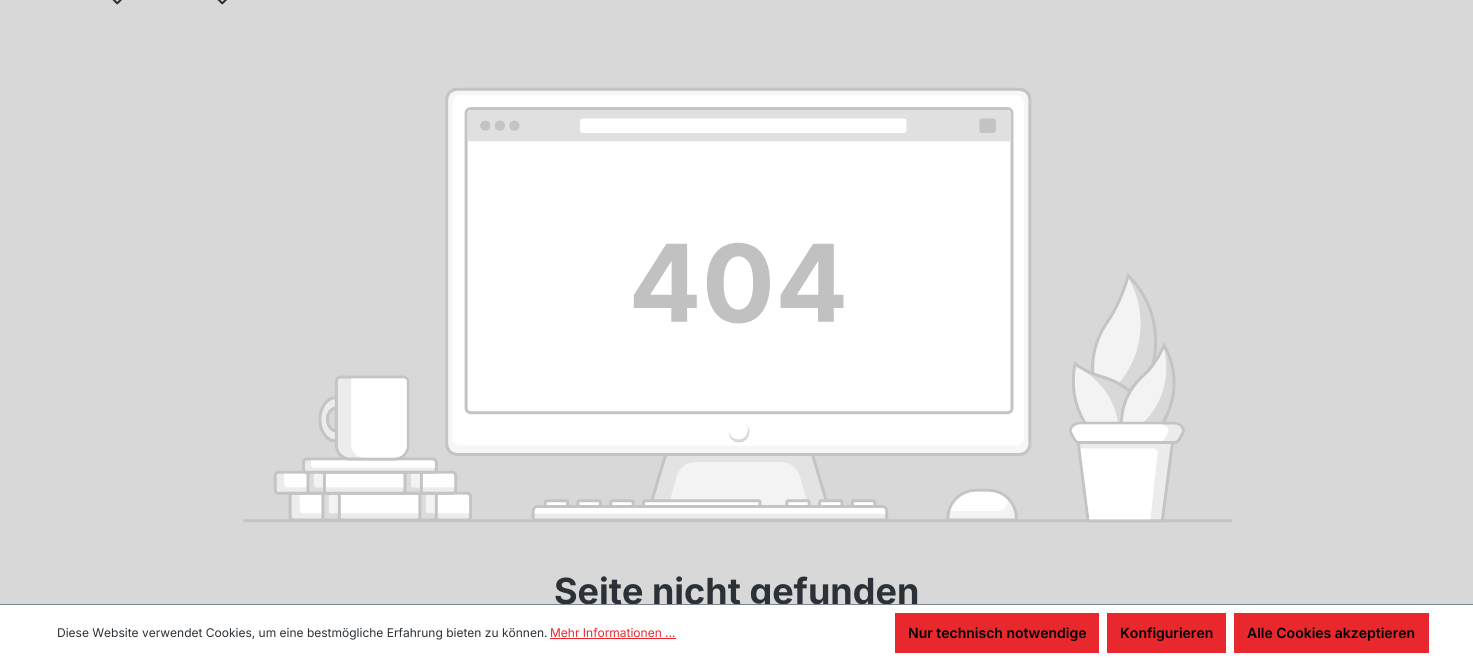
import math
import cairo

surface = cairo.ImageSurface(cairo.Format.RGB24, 1473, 661)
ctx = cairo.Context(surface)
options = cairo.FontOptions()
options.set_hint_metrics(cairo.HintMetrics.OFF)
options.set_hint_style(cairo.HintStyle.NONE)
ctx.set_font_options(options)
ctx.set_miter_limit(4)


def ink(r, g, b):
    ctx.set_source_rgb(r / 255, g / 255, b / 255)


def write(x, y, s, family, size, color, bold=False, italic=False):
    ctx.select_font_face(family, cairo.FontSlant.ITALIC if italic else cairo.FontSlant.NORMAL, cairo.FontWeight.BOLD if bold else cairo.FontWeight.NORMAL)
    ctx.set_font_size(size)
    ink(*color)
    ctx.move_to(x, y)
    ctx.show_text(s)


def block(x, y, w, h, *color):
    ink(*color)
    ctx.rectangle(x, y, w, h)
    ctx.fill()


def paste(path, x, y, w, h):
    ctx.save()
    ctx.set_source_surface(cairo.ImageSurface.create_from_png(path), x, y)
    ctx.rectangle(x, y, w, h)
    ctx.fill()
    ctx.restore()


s1 = dict(family="Inter", size=36, color=(43, 49, 54), bold=True)
s2 = dict(family="Inter", size=12, color=(43, 49, 54))
s3 = dict(family="Inter", size=12, color=(232, 40, 45))
s4 = dict(family="Inter SemiBold", size=14, color=(0, 0, 0))

ink(216, 216, 216)
ctx.paint()
paste("pic1.png", 112, 0, 10, 5)
paste("pic1.png", 217, 0, 10, 5)
paste("pic2.png", 243, 87, 989, 436)
write(554, 604, "Seite nicht gefunden", **s1)
block(0, 605, 1473, 56, 255, 255, 255)
block(0, 604, 1473, 1, 121, 132, 144)
write(57, 637, "Diese Website verwendet Cookies, um eine bestmögliche Erfahrung bieten zu können.", **s2)
write(550, 637, "Mehr Informationen ...", **s3)
block(550, 638, 126, 1, 232, 40, 45)
block(895, 613, 204, 40, 232, 40, 45)
write(908, 638, "Nur technisch notwendige", **s4)
block(1107, 613, 119, 40, 232, 40, 45)
write(1120, 638, "Konfigurieren", **s4)
block(1234, 613, 195, 40, 232, 40, 45)
write(1247, 638, "Alle Cookies akzeptieren", **s4)
surface.write_to_png("screenshot.png")
